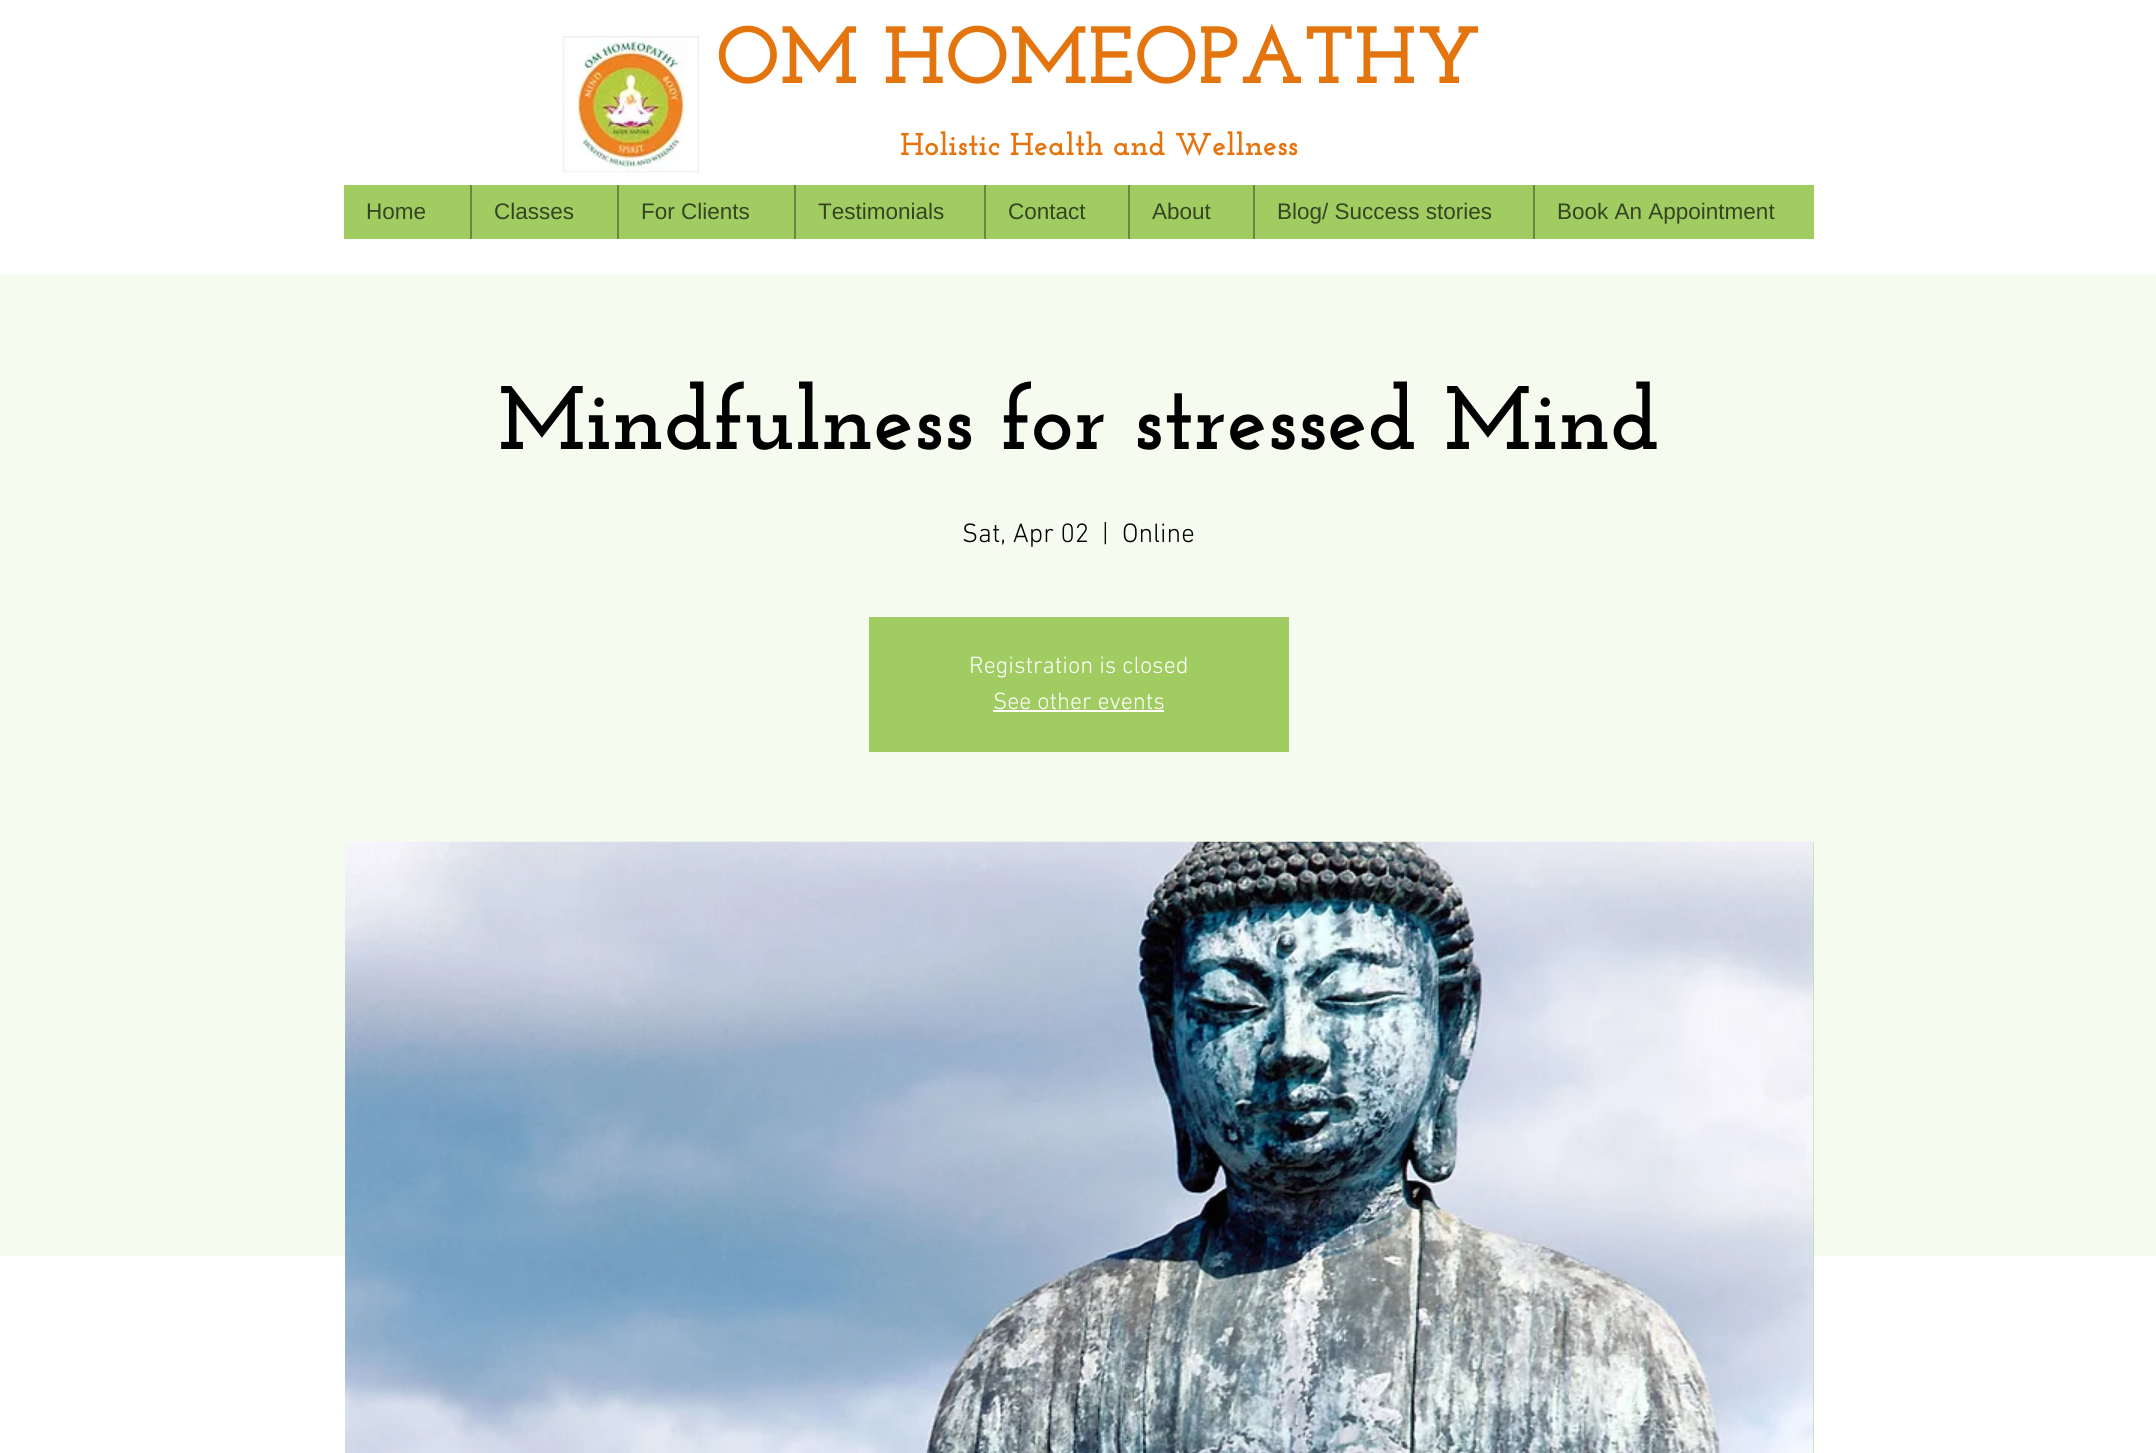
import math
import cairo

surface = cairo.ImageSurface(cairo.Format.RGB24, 2156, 1453)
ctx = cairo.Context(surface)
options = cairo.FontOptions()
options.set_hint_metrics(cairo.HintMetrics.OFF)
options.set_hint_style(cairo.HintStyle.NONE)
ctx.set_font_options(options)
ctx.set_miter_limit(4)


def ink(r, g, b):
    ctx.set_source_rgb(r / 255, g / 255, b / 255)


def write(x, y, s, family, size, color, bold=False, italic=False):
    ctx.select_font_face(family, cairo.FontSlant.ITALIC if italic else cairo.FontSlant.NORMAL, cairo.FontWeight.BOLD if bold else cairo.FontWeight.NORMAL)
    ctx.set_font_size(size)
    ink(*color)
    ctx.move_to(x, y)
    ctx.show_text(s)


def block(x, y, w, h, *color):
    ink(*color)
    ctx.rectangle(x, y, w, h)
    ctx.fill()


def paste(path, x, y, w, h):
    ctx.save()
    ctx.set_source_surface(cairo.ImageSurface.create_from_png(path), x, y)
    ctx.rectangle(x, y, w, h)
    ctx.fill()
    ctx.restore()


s1 = dict(family="Josefin Slab", size=81, color=(228, 116, 14), bold=True)
s2 = dict(family="Josefin Slab", size=31.5, color=(228, 116, 14), bold=True)
s3 = dict(family="Liberation Sans", size=22.5, color=(53, 68, 33))
s4 = dict(family="Josefin Slab", size=90, color=(0, 0, 0), bold=True)
s5 = dict(family="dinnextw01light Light", size=27, color=(0, 0, 0))
s6 = dict(family="dinnextw01light Light", size=24, color=(255, 255, 255))

ink(255, 255, 255)
ctx.paint()
paste("pic1.png", 562, 36, 137, 137)
write(716, 83, "OM HOMEOPATHY", **s1)
write(900, 155, "Holistic Health and Wellness", **s2)
block(344, 185, 1470, 54, 160, 204, 98)
write(366, 219, "Home", **s3)
block(470, 185, 2, 54, 107, 136, 65)
write(494, 219, "Classes", **s3)
block(617, 185, 2, 54, 107, 136, 65)
write(641, 219, "For Clients", **s3)
block(794, 185, 2, 54, 107, 136, 65)
write(818, 219, "Testimonials", **s3)
block(984, 185, 2, 54, 107, 136, 65)
write(1008, 219, "Contact", **s3)
block(1128, 185, 2, 54, 107, 136, 65)
write(1152, 219, "About", **s3)
block(1253, 185, 2, 54, 107, 136, 65)
write(1277, 219, "Blog/ Success stories", **s3)
block(1533, 185, 2, 54, 107, 136, 65)
write(1557, 219, "Book An Appointment", **s3)
block(0, 275, 2156, 981, 246, 251, 240)
write(498, 449, "Mindfulness for stressed Mind", **s4)
write(962, 542, "Sat, Apr 02", **s5)
write(1102, 542, "|", **s5)
write(1122, 542, "Online", **s5)
block(869, 617, 420, 135, 160, 204, 98)
write(969, 673, "Registration is closed", **s6)
write(993, 709, "See other events", **s6)
block(993, 710, 171, 2, 255, 255, 255)
block(1813, 842, 1, 611, 197, 221, 164)
paste("pic2.png", 345, 841, 1469, 612)
surface.write_to_png("screenshot.png")
